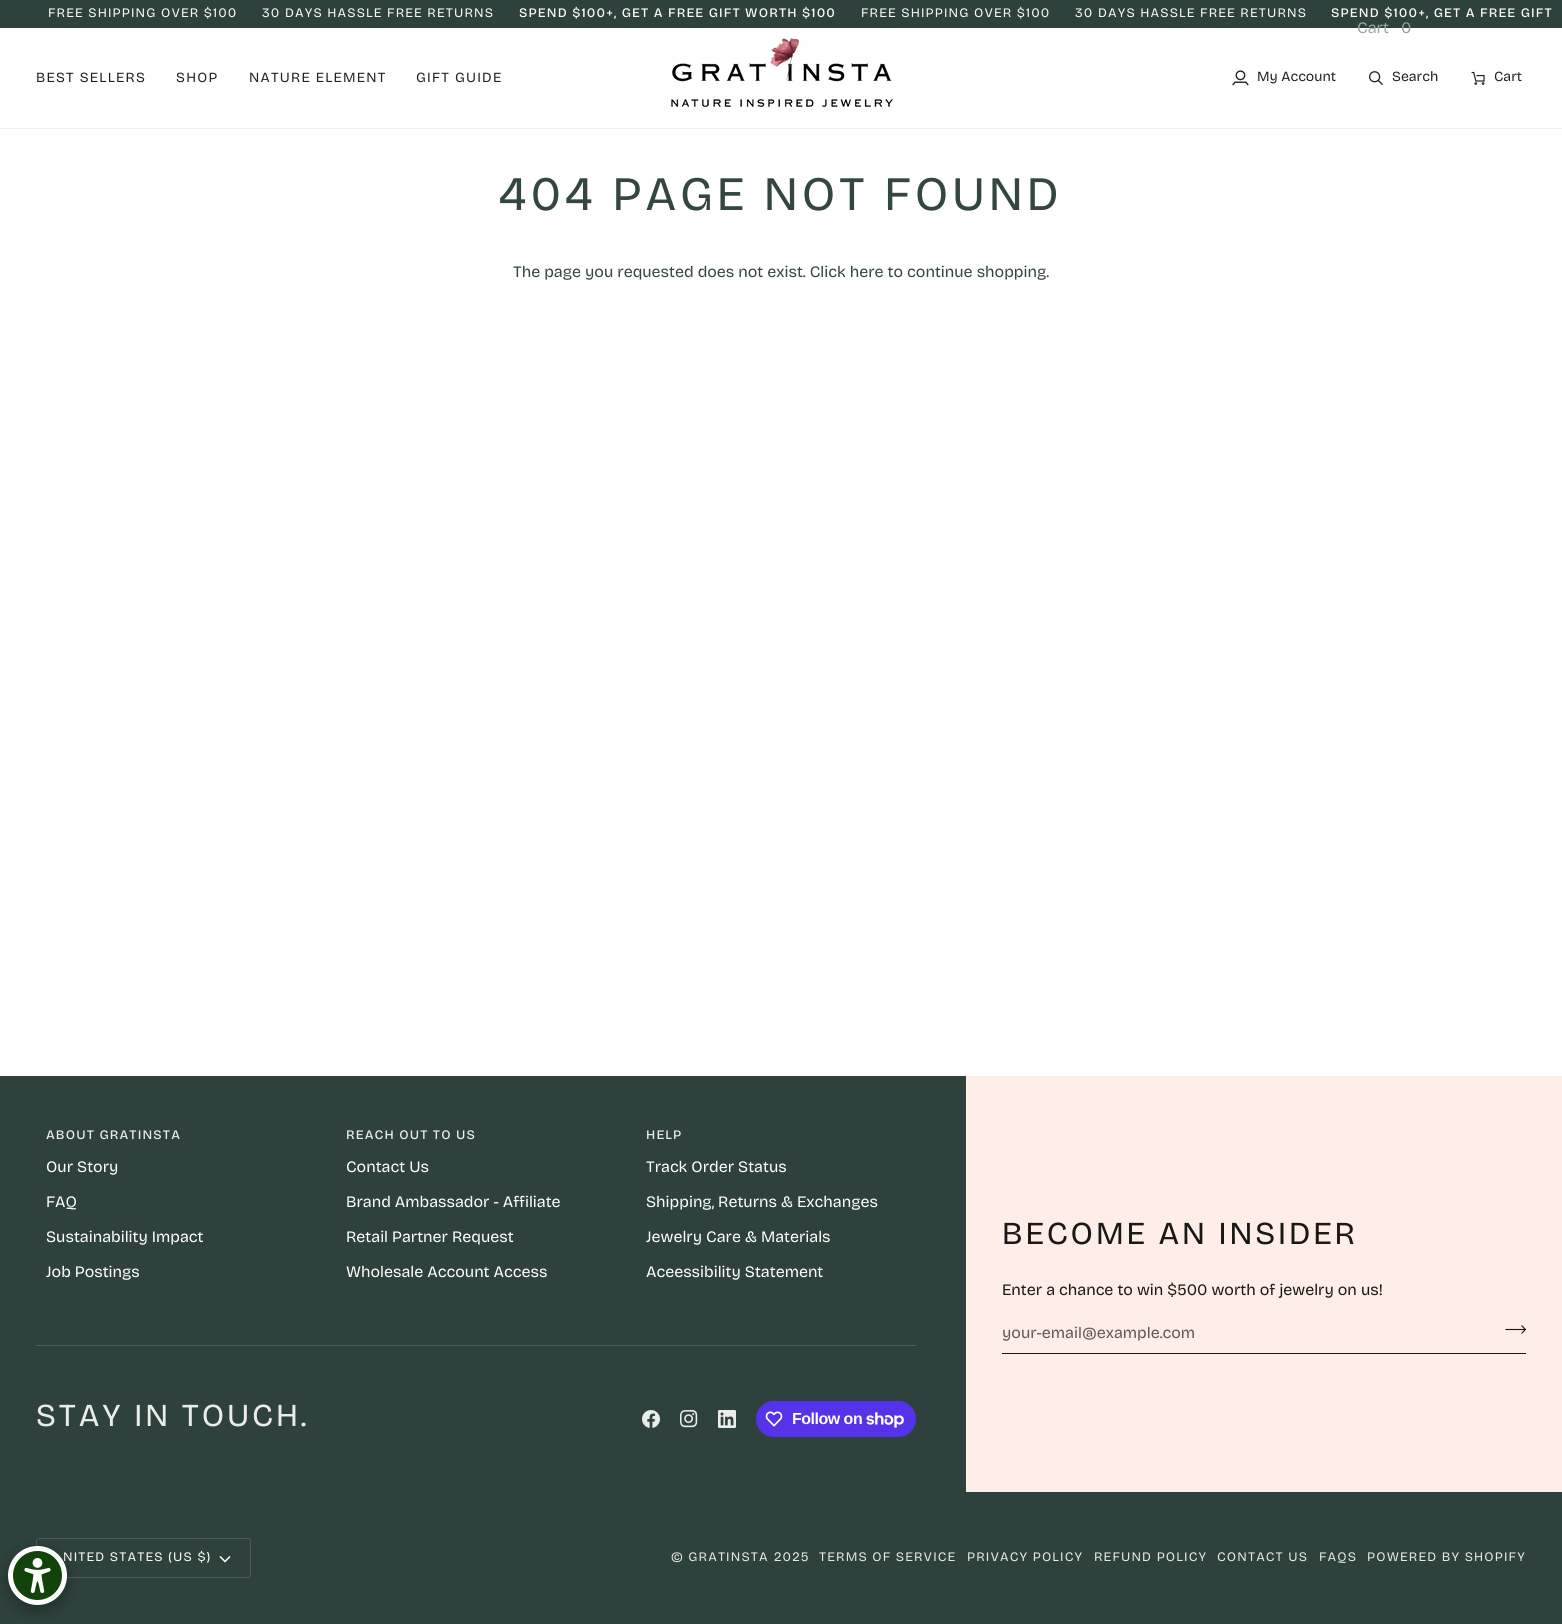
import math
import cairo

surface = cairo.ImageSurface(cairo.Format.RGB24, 1562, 1624)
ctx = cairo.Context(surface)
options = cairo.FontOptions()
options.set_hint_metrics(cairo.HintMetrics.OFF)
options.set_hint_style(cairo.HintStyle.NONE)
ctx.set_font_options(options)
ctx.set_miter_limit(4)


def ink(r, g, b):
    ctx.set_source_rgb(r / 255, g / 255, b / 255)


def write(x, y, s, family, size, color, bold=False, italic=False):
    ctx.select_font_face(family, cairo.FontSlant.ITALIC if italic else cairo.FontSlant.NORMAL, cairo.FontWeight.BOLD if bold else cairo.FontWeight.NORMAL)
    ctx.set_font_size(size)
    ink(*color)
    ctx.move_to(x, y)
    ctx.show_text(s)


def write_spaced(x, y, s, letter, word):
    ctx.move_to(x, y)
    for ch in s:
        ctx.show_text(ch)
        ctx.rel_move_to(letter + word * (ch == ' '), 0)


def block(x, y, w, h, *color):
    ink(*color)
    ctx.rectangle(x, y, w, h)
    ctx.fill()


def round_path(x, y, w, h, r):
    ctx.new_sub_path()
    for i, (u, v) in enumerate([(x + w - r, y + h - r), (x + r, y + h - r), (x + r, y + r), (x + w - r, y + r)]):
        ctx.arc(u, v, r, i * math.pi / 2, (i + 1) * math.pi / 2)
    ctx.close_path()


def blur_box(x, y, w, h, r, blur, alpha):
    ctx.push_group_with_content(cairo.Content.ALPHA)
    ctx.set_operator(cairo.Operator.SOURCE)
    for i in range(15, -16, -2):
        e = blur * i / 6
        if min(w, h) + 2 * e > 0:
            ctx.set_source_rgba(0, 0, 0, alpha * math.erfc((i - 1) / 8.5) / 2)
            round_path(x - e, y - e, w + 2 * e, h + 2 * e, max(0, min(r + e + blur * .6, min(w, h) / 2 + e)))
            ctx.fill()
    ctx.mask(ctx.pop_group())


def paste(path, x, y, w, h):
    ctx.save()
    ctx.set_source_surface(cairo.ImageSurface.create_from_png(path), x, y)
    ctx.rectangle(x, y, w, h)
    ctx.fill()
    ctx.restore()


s1 = dict(family="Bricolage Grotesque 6", size=16, color=(158, 167, 165))
s2 = dict(family="Bricolage Grotesque 6", size=16, color=(147, 157, 155))
s3 = dict(family="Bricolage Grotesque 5", size=14, color=(29, 37, 35))
s4 = dict(family="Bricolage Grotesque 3", size=15.95, color=(51, 70, 65))
s5 = dict(family="Bricolage Grotesque 3", size=15.95, color=(255, 255, 255))
s6 = dict(family="Bricolage Grotesque 3", size=15.95, color=(26, 24, 23))
s7 = dict(family="Bricolage Grotesque 3", size=15.95, color=(95, 88, 85))

ink(255, 255, 255)
ctx.paint()
block(0, 0, 1562, 28, 46, 65, 61)
ctx.select_font_face("Bricolage Grotesque")
ctx.set_font_size(13)
ink(252, 250, 247)
write_spaced(48, 17, "FREE SHIPPING OVER $100", 1.15, 0)
write_spaced(262, 17, "30 DAYS HASSLE FREE RETURNS", 1.15, 0)
ctx.select_font_face("Bricolage Grotesque Medium")
write_spaced(519, 17, "SPEND $100+, GET A FREE GIFT WORTH $100", 1.15, 0)
ctx.select_font_face("Bricolage Grotesque")
write_spaced(861, 17, "FREE SHIPPING OVER $100", 1.15, 0)
write_spaced(1075, 17, "30 DAYS HASSLE FREE RETURNS", 1.15, 0)
ctx.select_font_face("Bricolage Grotesque Medium")
write_spaced(1331, 17, "SPEND $100+, GET A FREE GIFT", 1.15, 0)
write(1357, 33, "Cart", **s1)
write(1401, 33, "0", **s2)
block(0, 128, 1562, 1, 248, 240, 231)
ctx.select_font_face("Bricolage Grotesque 5")
ctx.set_font_size(14)
ink(29, 37, 35)
write_spaced(36, 82, "BEST SELLERS", 1.25, 0)
write_spaced(176, 82, "SHOP", 1.25, 0)
write_spaced(249, 82, "NATURE ELEMENT", 1.25, 0)
write_spaced(416, 82, "GIFT GUIDE", 1.25, 0)
paste("pic1.png", 671, 38, 222, 69)
paste("pic2.png", 1232, 70, 17, 16)
write(1257, 81, "My Account", **s3)
paste("pic3.png", 1369, 71, 14, 14)
write(1392, 81, "Search", **s3)
paste("pic4.png", 1471, 71, 14, 14)
write(1494, 81, "Cart", **s3)
ctx.select_font_face("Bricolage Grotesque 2")
ctx.set_font_size(48)
ink(51, 70, 65)
write_spaced(499, 210, "404 PAGE NOT FOUND", 4.3, 0)
write(513, 277, "The page you requested does not exist. Click here to continue shopping.", **s4)
block(0, 1076, 966, 416, 46, 65, 61)
ctx.select_font_face("Bricolage Grotesque Medium")
ctx.set_font_size(13)
ink(234, 236, 236)
write_spaced(46, 1139, "ABOUT GRATINSTA", 1.15, 0)
write(46, 1172, "Our Story", **s5)
write(46, 1207, "FAQ", **s5)
write(46, 1242, "Sustainability Impact", **s5)
write(46, 1277, "Job Postings", **s5)
ctx.select_font_face("Bricolage Grotesque Medium")
ctx.set_font_size(13)
ink(234, 236, 236)
write_spaced(346, 1139, "REACH OUT TO US", 1.15, 0)
write(346, 1172, "Contact Us", **s5)
write(346, 1207, "Brand Ambassador - Affiliate", **s5)
write(346, 1242, "Retail Partner Request", **s5)
write(346, 1277, "Wholesale Account Access", **s5)
ctx.select_font_face("Bricolage Grotesque Medium")
ctx.set_font_size(13)
ink(234, 236, 236)
write_spaced(646, 1139, "HELP", 1.15, 0)
write(646, 1172, "Track Order Status", **s5)
write(646, 1207, "Shipping, Returns & Exchanges", **s5)
write(646, 1242, "Jewelry Care & Materials", **s5)
write(646, 1277, "Aceessibility Statement", **s5)
block(36, 1345, 880, 1, 77, 94, 90)
ctx.select_font_face("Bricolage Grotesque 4")
ctx.set_font_size(32)
ink(234, 236, 236)
write_spaced(36, 1426, "STAY IN TOUCH.", 2.9, 0)
paste("pic5.png", 642, 1410, 18, 18)
paste("pic6.png", 680, 1410, 18, 18)
paste("pic7.png", 718, 1410, 18, 18)
ink(84, 51, 235)
round_path(756, 1401, 160, 36, 18)
ctx.fill()
paste("pic8.png", 765, 1411, 18, 16)
ctx.select_font_face("Liberation Sans", cairo.FontSlant.NORMAL, cairo.FontWeight.BOLD)
ctx.set_font_size(16)
ink(255, 255, 255)
write_spaced(792, 1424, "Follow on", -0.5, 0)
paste("pic9.png", 866, 1412, 38, 16)
block(966, 1076, 596, 416, 255, 238, 231)
ctx.select_font_face("Bricolage Grotesque 4")
ctx.set_font_size(32)
ink(26, 24, 23)
write_spaced(1002, 1244, "BECOME AN INSIDER", 2.9, 0)
write(1002, 1295, "Enter a chance to win $500 worth of jewelry on us!", **s6)
block(1002, 1353, 524, 1, 26, 24, 23)
write(1002, 1338, "your-email@example.com", **s7)
ctx.new_path()
ctx.move_to(1521.5, 1325.5)
ctx.line_to(1525.5, 1329.5)
ctx.line_to(1521.5, 1333.5)
ctx.move_to(1505.5, 1329.5)
ctx.line_to(1525.5, 1329.5)
ink(26, 24, 23)
ctx.set_line_width(1.1)
ctx.stroke()
block(0, 1492, 1562, 132, 46, 65, 61)
round_path(36.5, 1538.5, 214, 39, 2.5)
ink(77, 93, 89)
ctx.set_line_width(1)
ctx.stroke()
ctx.select_font_face("Bricolage Grotesque")
ctx.set_font_size(13)
ink(252, 250, 247)
write_spaced(63, 1561, "NITED STATES (US $)", 1.15, 0)
ctx.new_path()
ctx.move_to(220.5, 1557)
ctx.line_to(225, 1561.5)
ctx.line_to(229.5, 1557)
ctx.set_line_width(1.5)
ctx.set_line_cap(cairo.LineCap.SQUARE)
ctx.stroke()
ink(231, 232, 228)
write_spaced(671, 1561, "© GRATINSTA", 1.15, 0)
write_spaced(774, 1561, "2025", 1.15, 0)
write_spaced(819, 1561, "TERMS OF SERVICE", 1.15, 0)
write_spaced(967, 1561, "PRIVACY POLICY", 1.15, 0)
write_spaced(1094, 1561, "REFUND POLICY", 1.15, 0)
write_spaced(1217, 1561, "CONTACT US", 1.15, 0)
write_spaced(1319, 1561, "FAQS", 1.15, 0)
write_spaced(1367, 1561, "POWERED BY SHOPIFY", 1.15, 0)
ink(0, 0, 0)
blur_box(8, 1551, 59, 59, 29.5, 7.5, 0.3)
paste("pic10.png", 8, 1546, 59, 59)
surface.write_to_png("screenshot.png")
